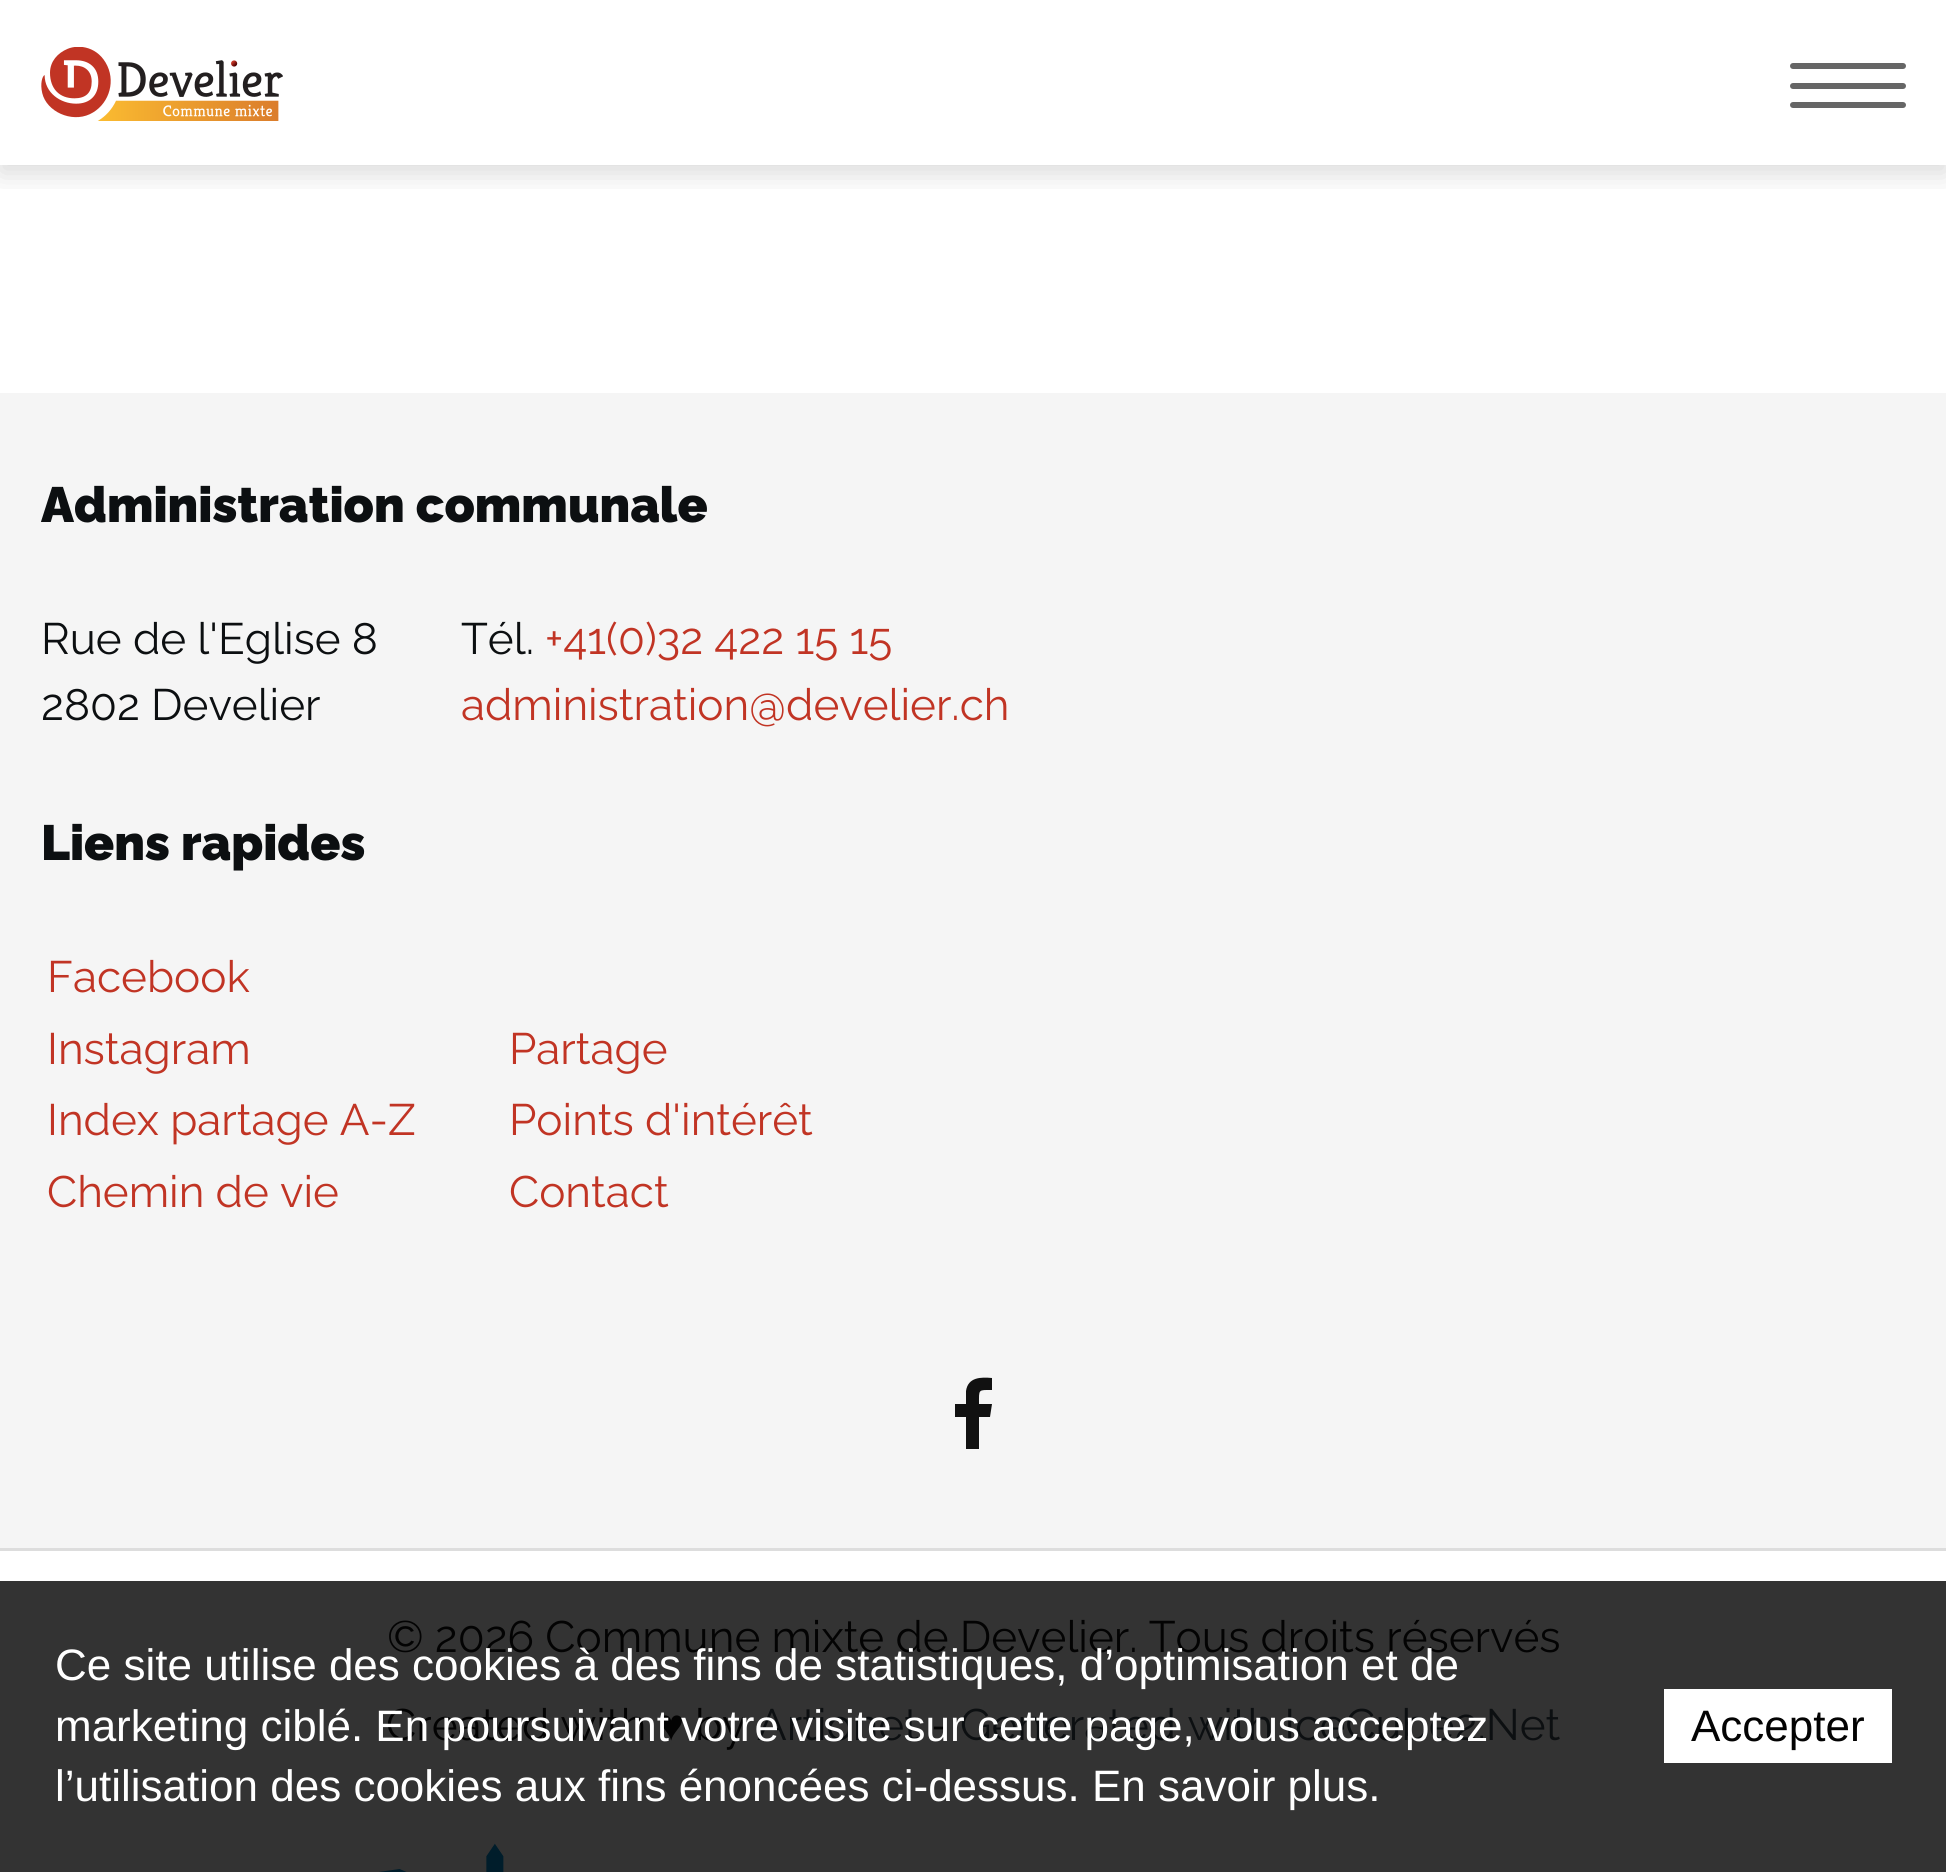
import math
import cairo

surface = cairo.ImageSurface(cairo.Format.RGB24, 1946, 1872)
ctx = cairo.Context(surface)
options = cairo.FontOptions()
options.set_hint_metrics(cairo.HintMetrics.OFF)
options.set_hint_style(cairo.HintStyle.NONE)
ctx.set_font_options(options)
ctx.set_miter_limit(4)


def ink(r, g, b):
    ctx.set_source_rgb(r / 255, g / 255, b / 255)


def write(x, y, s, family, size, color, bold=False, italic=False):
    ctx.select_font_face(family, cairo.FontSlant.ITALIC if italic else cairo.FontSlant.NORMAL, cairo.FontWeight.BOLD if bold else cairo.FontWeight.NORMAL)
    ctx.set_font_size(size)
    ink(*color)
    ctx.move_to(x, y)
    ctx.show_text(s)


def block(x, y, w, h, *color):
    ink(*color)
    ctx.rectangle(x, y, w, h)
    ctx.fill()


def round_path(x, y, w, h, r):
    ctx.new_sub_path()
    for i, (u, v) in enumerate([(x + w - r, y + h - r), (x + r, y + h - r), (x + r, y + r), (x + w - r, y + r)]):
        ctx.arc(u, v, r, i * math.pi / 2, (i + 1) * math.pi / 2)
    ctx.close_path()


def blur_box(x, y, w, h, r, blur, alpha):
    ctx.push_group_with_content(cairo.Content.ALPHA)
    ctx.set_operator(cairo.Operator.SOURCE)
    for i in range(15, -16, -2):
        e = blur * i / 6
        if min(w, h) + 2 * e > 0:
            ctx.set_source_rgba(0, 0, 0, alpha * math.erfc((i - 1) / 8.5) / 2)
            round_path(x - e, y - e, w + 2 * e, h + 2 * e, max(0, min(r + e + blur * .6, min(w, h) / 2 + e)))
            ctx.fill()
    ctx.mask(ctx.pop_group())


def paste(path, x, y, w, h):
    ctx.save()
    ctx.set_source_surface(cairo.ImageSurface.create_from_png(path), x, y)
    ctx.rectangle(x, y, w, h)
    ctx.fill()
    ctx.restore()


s1 = dict(family="Raleway Black", size=49.5, color=(12, 15, 17))
s2 = dict(family="Raleway", size=44, color=(12, 15, 17))
s3 = dict(family="Raleway", size=44, color=(193, 52, 36))
s4 = dict(family="Raleway", size=44, color=(3, 3, 3))
s5 = dict(family="Liberation Serif", size=44, color=(3, 3, 3))
s6 = dict(family="Liberation Sans", size=44, color=(255, 255, 255))
s7 = dict(family="Liberation Sans", size=44, color=(3, 3, 3))

ink(255, 255, 255)
ctx.paint()
block(0, 1581, 1946, 291, 51, 51, 51)
ctx.save()
ctx.rectangle(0, 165, 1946, 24)
ctx.clip()
ink(0, 0, 0)
blur_box(0, 8, 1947, 165, 0, 14, 0.15)
ctx.restore()
paste("pic1.png", 41, 47, 242, 74)
ink(102, 102, 102)
round_path(1790, 63, 116, 6, 3)
ctx.fill()
round_path(1790, 83, 116, 6, 3)
ctx.fill()
round_path(1790, 102, 116, 6, 3)
ctx.fill()
block(0, 393, 1946, 1155, 245, 245, 245)
block(0, 1548, 1946, 3, 221, 221, 221)
write(41, 522, "Administration communale", **s1)
write(41, 654, "Rue de l'Eglise 8", **s2)
write(41, 720, "2802 Develier", **s2)
write(461, 654, "Tél.", **s2)
write(545, 654, "+41(0)32 422 15 15", **s3)
write(461, 720, "administration@develier.ch", **s3)
write(41, 860, "Liens rapides", **s1)
write(47, 992, "Facebook", **s3)
write(47, 1064, "Instagram", **s3)
write(47, 1135, "Index partage A-Z", **s3)
write(47, 1207, "Chemin de vie", **s3)
write(509, 1064, "Partage", **s3)
write(509, 1135, "Points d'intérêt", **s3)
write(509, 1207, "Contact", **s3)
ink(17, 17, 17)
ctx.new_path()
ctx.move_to(992, 1378)
ctx.line_to(992, 1390)
ctx.curve_to(978, 1390, 979, 1389, 979, 1404)
ctx.line_to(992, 1404)
ctx.line_to(990, 1417)
ctx.line_to(979, 1417)
ctx.line_to(979, 1449)
ctx.line_to(966, 1449)
ctx.line_to(966, 1417)
ctx.line_to(955, 1417)
ctx.line_to(955, 1404)
ctx.line_to(966, 1404)
ctx.line_to(966, 1391)
ctx.curve_to(968, 1377, 981, 1377, 992, 1378)
ctx.close_path()
ctx.fill()
write(387, 1652, "© 2026 Commune mixte de Develier. Tous droits réservés", **s4)
write(386, 1740, "Created with", **s4)
write(658, 1740, "♥", **s5)
write(695, 1740, "by", **s4)
write(757, 1740, "Artionet", **s2)
write(931, 1740, "-", **s4)
write(960, 1740, "Generated with IceCube2.Net", **s2)
paste("pic2.png", 379, 1843, 125, 29)
write(55, 1680, "Ce site utilise des cookies à des fins de statistiques, d’optimisation et de", **s6)
write(55, 1741, "marketing ciblé. En poursuivant votre visite sur cette page, vous acceptez", **s6)
write(55, 1801, "l’utilisation des cookies aux fins énoncées ci-dessus. En savoir plus.", **s6)
block(1664, 1689, 228, 74, 255, 255, 255)
write(1691, 1741, "Accepter", **s7)
surface.write_to_png("screenshot.png")
